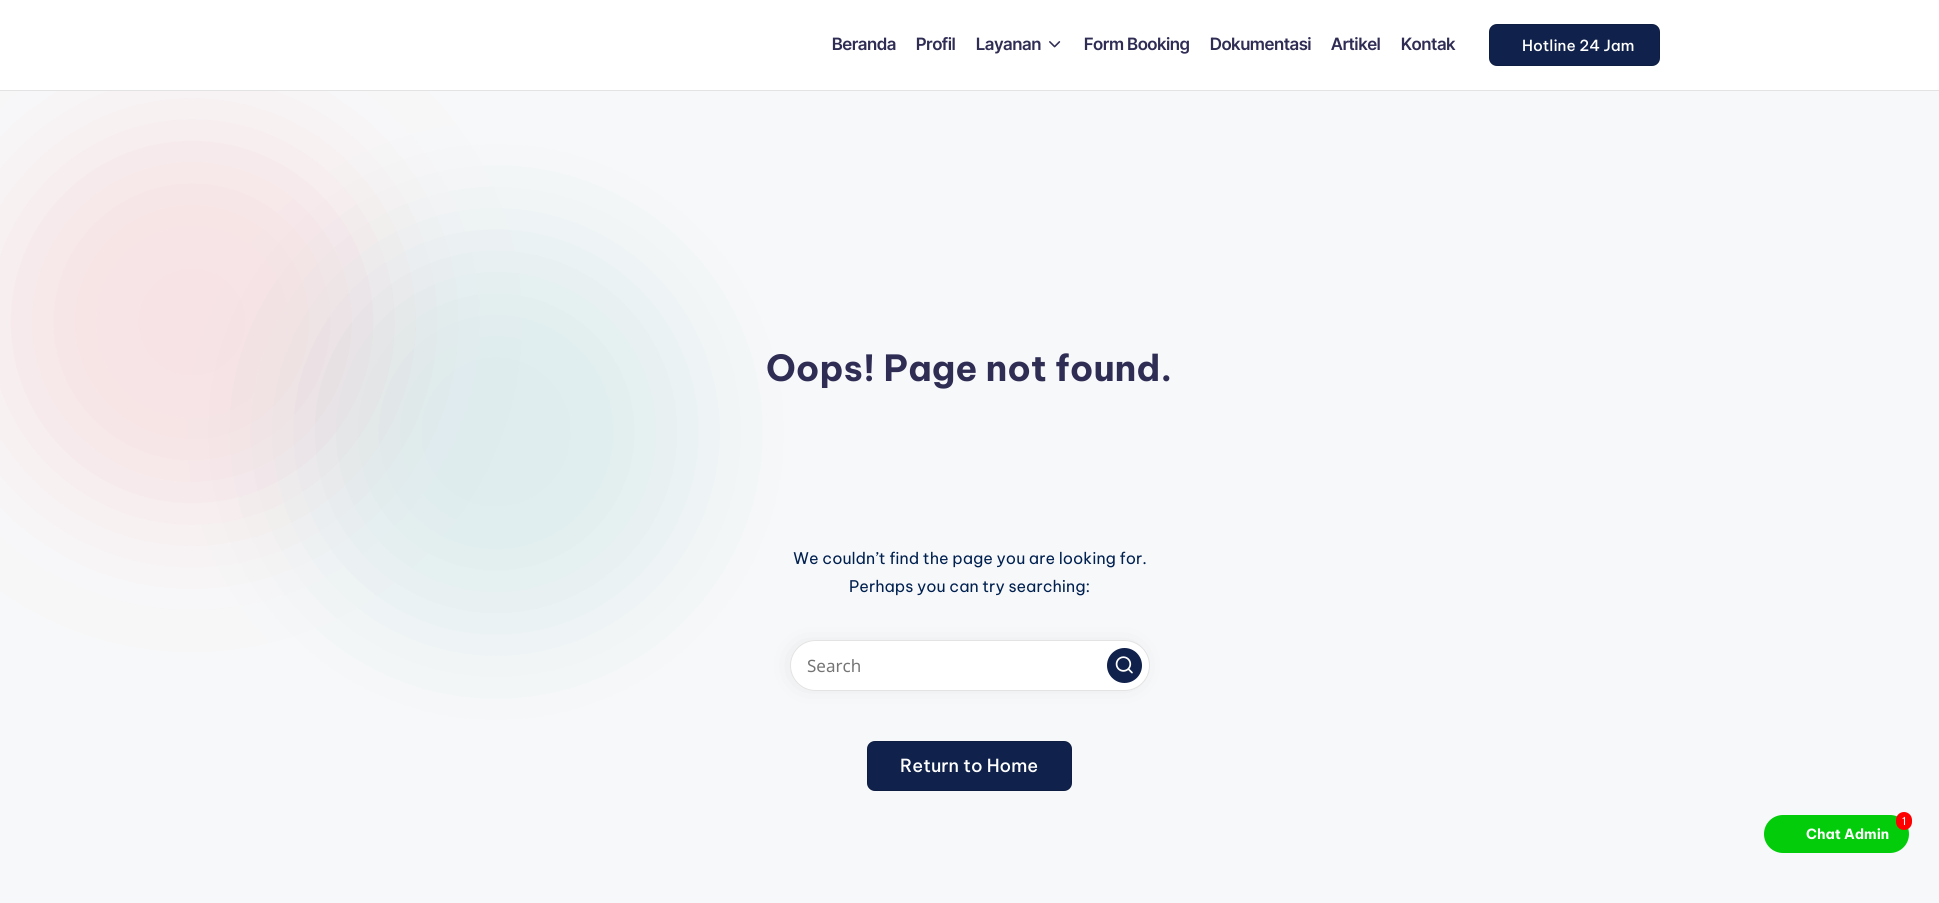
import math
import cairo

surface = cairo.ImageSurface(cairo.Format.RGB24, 1939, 903)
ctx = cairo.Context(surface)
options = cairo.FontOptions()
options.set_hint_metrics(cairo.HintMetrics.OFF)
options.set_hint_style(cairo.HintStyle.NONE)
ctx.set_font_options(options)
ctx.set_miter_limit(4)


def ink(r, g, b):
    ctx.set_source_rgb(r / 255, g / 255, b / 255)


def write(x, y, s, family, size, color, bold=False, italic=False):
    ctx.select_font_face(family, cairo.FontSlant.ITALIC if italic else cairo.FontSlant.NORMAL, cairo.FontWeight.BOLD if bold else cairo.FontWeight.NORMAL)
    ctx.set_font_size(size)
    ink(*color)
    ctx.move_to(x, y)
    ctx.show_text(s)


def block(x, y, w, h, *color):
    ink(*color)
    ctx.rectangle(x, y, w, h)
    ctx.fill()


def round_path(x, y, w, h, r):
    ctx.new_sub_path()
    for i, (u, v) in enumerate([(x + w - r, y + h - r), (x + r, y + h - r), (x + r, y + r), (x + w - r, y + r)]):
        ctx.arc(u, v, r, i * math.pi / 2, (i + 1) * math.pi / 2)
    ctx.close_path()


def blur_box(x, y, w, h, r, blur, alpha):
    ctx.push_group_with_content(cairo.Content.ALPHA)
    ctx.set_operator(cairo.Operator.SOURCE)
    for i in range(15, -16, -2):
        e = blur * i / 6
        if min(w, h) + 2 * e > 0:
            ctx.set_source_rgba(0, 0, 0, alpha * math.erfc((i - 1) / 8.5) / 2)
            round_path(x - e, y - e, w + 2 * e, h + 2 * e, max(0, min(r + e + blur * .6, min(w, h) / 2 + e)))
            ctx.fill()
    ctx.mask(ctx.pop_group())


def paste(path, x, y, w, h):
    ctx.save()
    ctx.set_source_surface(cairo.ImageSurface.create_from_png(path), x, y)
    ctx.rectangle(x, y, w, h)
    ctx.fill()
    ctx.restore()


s1 = dict(family="Inter Tight SemiBold", size=17, color=(48, 45, 85))
s2 = dict(family="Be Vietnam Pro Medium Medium", size=15.25, color=(255, 255, 255))
s3 = dict(family="Be Vietnam Pro", size=36, color=(48, 45, 85), bold=True)
s4 = dict(family="Be Vietnam Pro", size=16, color=(0, 32, 80))
s5 = dict(family="Noto Sans", size=17, color=(117, 117, 117))
s6 = dict(family="Be Vietnam Pro Medium Medium", size=18, color=(255, 255, 255))
s7 = dict(family="Be Vietnam Pro", size=11, color=(255, 255, 255))
s8 = dict(family="Be Vietnam Pro", size=14, color=(255, 255, 255), bold=True)

ink(247, 248, 249)
ctx.paint()
ink(247, 227, 229)
blur_box(0, 130, 384, 384, 192, 64, 1)
ink(4, 134, 139)
blur_box(304, 240, 384, 384, 192, 64, 0.1)
block(0, 0, 1939, 90, 255, 255, 255)
block(0, 90, 1939, 1, 227, 227, 227)
write(832, 50, "Beranda", **s1)
write(916, 50, "Profil", **s1)
write(976, 50, "Layanan", **s1)
paste("pic1.png", 1049, 41, 12, 7)
write(1084, 50, "Form Booking", **s1)
write(1210, 50, "Dokumentasi", **s1)
write(1331, 50, "Artikel", **s1)
write(1401, 50, "Kontak", **s1)
ink(16, 33, 75)
round_path(1489, 24, 171, 42, 8)
ctx.fill()
round_path(1489.5, 24.5, 170, 41, 7.5)
ctx.set_source_rgba(0, 0, 0, 0.12)
ctx.set_line_width(1)
ctx.stroke()
write(1522, 51, "Hotline 24 Jam", **s2)
write(766, 381, "Oops! Page not found.", **s3)
write(793, 564, "We couldn’t find the page you are looking for.", **s4)
write(849, 592, "Perhaps you can try searching:", **s4)
ink(0, 0, 0)
blur_box(803, 656, 328, 19, 9.5, 16, 0.15)
ink(255, 255, 255)
round_path(790, 640, 360, 51, 25.5)
ctx.fill()
round_path(790.5, 640.5, 359, 50, 25)
ctx.set_source_rgba(0.725, 0.725, 0.725, 0.4)
ctx.stroke()
write(807, 672, "Search", **s5)
ink(16, 33, 75)
ctx.new_path()
ctx.arc(1124.5, 665.5, 17.5, 0, 2 * math.pi)
ctx.fill()
paste("pic2.png", 1115, 656, 18, 18)
round_path(867, 741, 205, 50, 8)
ctx.fill()
round_path(867.5, 741.5, 204, 49, 7.5)
ctx.set_source_rgba(0, 0, 0, 0.12)
ctx.stroke()
write(900, 772, "Return to Home", **s6)
ink(3, 204, 11)
round_path(1764, 815, 145, 38, 19)
ctx.fill()
ink(255, 0, 0)
round_path(1896, 812, 16, 18, 8)
ctx.fill()
write(1902, 825, "1", **s7)
write(1806, 839, "Chat Admin", **s8)
surface.write_to_png("screenshot.png")
